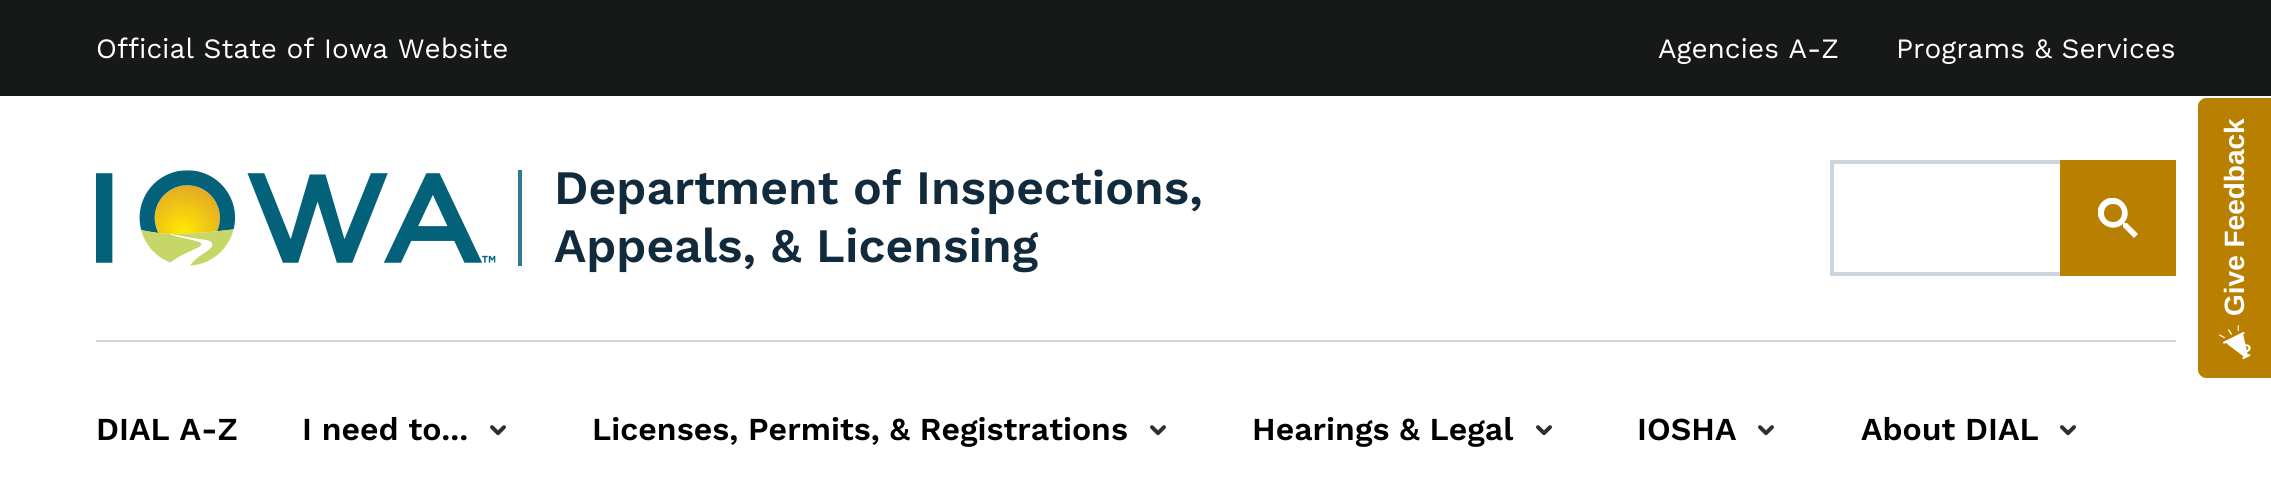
import math
import cairo

surface = cairo.ImageSurface(cairo.Format.RGB24, 2271, 504)
ctx = cairo.Context(surface)
options = cairo.FontOptions()
options.set_hint_metrics(cairo.HintMetrics.OFF)
options.set_hint_style(cairo.HintStyle.NONE)
ctx.set_font_options(options)
ctx.set_miter_limit(4)


def ink(r, g, b):
    ctx.set_source_rgb(r / 255, g / 255, b / 255)


def write(x, y, s, family, size, color, bold=False, italic=False):
    ctx.select_font_face(family, cairo.FontSlant.ITALIC if italic else cairo.FontSlant.NORMAL, cairo.FontWeight.BOLD if bold else cairo.FontWeight.NORMAL)
    ctx.set_font_size(size)
    ink(*color)
    ctx.move_to(x, y)
    ctx.show_text(s)


def block(x, y, w, h, *color):
    ink(*color)
    ctx.rectangle(x, y, w, h)
    ctx.fill()


def paste(path, x, y, w, h):
    ctx.save()
    ctx.set_source_surface(cairo.ImageSurface.create_from_png(path), x, y)
    ctx.rectangle(x, y, w, h)
    ctx.fill()
    ctx.restore()


s1 = dict(family="Work Sans", size=28, color=(255, 255, 255))
s2 = dict(family="Work Sans SemiBold", size=48, color=(17, 43, 61))
s3 = dict(family="Work Sans SemiBold", size=32, color=(0, 0, 0))
s4 = dict(family="Liberation Sans", size=28, color=(255, 255, 255), bold=True)

ink(255, 255, 255)
ctx.paint()
block(0, 0, 2271, 96, 23, 24, 24)
write(96, 58, "Official State of Iowa Website", **s1)
write(1658, 58, "Agencies A-Z", **s1)
write(1896, 58, "Programs & Services", **s1)
block(96, 340, 2080, 2, 204, 213, 219)
paste("pic1.png", 96, 170, 400, 96)
block(518, 170, 4, 96, 45, 123, 144)
write(554, 204, "Department of Inspections,", **s2)
write(554, 262, "Appeals, & Licensing", **s2)
block(1830, 160, 230, 4, 204, 213, 219)
block(1830, 272, 230, 4, 204, 213, 219)
block(1830, 160, 4, 116, 204, 213, 219)
block(2060, 160, 116, 116, 184, 127, 0)
ctx.save()
ctx.rectangle(2098, 198, 40, 40)
ctx.clip()
ink(255, 255, 255)
ctx.new_path()
ctx.move_to(2113, 222)
ctx.curve_to(2125, 222, 2125, 204, 2113, 204)
ctx.curve_to(2101, 204, 2101, 222, 2113, 222)
ctx.close_path()
ctx.move_to(2127, 223)
ctx.line_to(2138, 234)
ctx.line_to(2134, 238)
ctx.line_to(2123, 227)
ctx.line_to(2123, 224)
ctx.curve_to(2108, 236, 2089, 216, 2102, 202)
ctx.curve_to(2116, 189, 2136, 208, 2124, 223)
ctx.close_path()
ctx.fill()
ctx.restore()
write(96, 440, "DIAL A-Z", **s3)
write(302, 440, "I need to...", **s3)
paste("pic2.png", 490, 425, 16, 11)
write(592, 440, "Licenses, Permits, & Registrations", **s3)
paste("pic2.png", 1150, 425, 16, 11)
write(1252, 440, "Hearings & Legal", **s3)
paste("pic2.png", 1536, 425, 16, 11)
write(1637, 440, "IOSHA", **s3)
paste("pic2.png", 1758, 425, 16, 11)
write(1861, 440, "About DIAL", **s3)
paste("pic2.png", 2060, 425, 16, 11)
ink(184, 127, 0)
ctx.new_path()
ctx.move_to(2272, 378)
ctx.line_to(2206, 378)
ctx.curve_to(2202, 378, 2198, 374, 2198, 370)
ctx.line_to(2198, 106)
ctx.curve_to(2198, 102, 2202, 98, 2206, 98)
ctx.line_to(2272, 98)
ctx.close_path()
ctx.fill()
ctx.save()
ctx.translate(2244, 316)
ctx.rotate(-90 * math.pi / 180)
write(0, 0, "Give Feedback", **s4)
ctx.restore()
paste("pic3.png", 2219, 325, 32, 34)
surface.write_to_png("screenshot.png")
